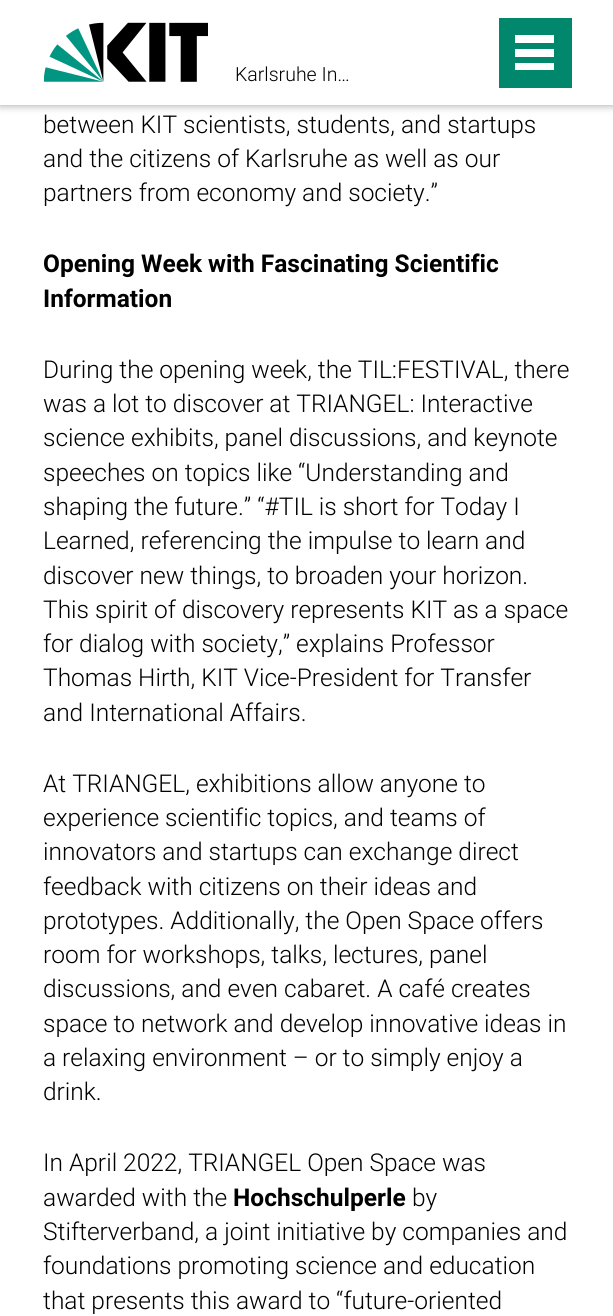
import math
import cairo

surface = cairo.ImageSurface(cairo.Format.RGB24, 613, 1316)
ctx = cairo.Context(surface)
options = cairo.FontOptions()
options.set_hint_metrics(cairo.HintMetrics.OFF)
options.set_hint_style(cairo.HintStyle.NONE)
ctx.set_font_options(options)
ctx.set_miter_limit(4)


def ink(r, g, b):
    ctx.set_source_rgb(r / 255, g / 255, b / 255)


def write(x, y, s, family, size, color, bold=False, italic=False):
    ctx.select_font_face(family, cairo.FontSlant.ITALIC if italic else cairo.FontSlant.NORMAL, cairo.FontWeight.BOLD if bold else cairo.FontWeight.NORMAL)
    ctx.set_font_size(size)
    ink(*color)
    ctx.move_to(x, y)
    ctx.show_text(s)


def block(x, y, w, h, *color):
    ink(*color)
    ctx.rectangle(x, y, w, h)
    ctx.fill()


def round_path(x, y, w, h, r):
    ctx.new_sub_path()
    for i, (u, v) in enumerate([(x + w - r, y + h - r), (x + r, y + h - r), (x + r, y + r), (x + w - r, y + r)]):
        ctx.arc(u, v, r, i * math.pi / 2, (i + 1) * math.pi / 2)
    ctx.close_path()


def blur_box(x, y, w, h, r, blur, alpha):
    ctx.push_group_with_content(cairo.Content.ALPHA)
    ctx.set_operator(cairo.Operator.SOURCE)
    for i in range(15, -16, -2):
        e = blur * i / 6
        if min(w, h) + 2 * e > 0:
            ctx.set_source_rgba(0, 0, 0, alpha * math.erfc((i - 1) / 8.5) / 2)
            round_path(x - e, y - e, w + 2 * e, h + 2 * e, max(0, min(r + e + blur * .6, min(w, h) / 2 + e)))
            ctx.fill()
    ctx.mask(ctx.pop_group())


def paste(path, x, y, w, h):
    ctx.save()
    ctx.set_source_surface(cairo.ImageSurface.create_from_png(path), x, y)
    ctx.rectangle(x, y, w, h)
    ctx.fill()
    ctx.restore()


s1 = dict(family="Roboto Light", size=19.5, color=(0, 0, 0))
s2 = dict(family="Roboto Light", size=24.5, color=(0, 0, 0))
s3 = dict(family="Roboto", size=24.5, color=(0, 0, 0), bold=True)

ink(255, 255, 255)
ctx.paint()
ink(64, 64, 64)
blur_box(0, 0, 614, 105, 0, 4.5, 0.5)
block(0, 0, 613, 105, 255, 255, 255)
paste("pic1.png", 44, 22, 164, 60)
write(235, 81, "Karlsruhe In…", **s1)
block(499, 18, 73, 70, 0, 135, 108)
block(515, 63, 39, 7, 255, 255, 255)
block(515, 49, 39, 8, 255, 255, 255)
block(515, 35, 39, 8, 255, 255, 255)
write(43, 133, "between KIT scientists, students, and startups", **s2)
write(43, 167, "and the citizens of Karlsruhe as well as our", **s2)
write(43, 201, "partners from economy and society.”", **s2)
write(43, 272, "Opening Week with Fascinating Scientific", **s3)
write(43, 307, "Information", **s3)
write(43, 378, "During the opening week, the TIL:FESTIVAL, there", **s2)
write(43, 412, "was a lot to discover at TRIANGEL: Interactive", **s2)
write(43, 446, "science exhibits, panel discussions, and keynote", **s2)
write(43, 481, "speeches on topics like “Understanding and", **s2)
write(43, 515, "shaping the future.” “#TIL is short for Today I", **s2)
write(43, 549, "Learned, referencing the impulse to learn and", **s2)
write(43, 584, "discover new things, to broaden your horizon.", **s2)
write(43, 618, "This spirit of discovery represents KIT as a space", **s2)
write(43, 652, "for dialog with society,” explains Professor", **s2)
write(43, 686, "Thomas Hirth, KIT Vice-President for Transfer", **s2)
write(43, 721, "and International Affairs.", **s2)
write(43, 792, "At TRIANGEL, exhibitions allow anyone to", **s2)
write(43, 826, "experience scientific topics, and teams of", **s2)
write(43, 860, "innovators and startups can exchange direct", **s2)
write(43, 895, "feedback with citizens on their ideas and", **s2)
write(43, 929, "prototypes. Additionally, the Open Space offers", **s2)
write(43, 963, "room for workshops, talks, lectures, panel", **s2)
write(43, 997, "discussions, and even cabaret. A café creates", **s2)
write(43, 1032, "space to network and develop innovative ideas in", **s2)
write(43, 1066, "a relaxing environment – or to simply enjoy a", **s2)
write(43, 1100, "drink.", **s2)
write(43, 1171, "In April 2022, TRIANGEL Open Space was", **s2)
write(43, 1206, "awarded with the", **s2)
write(233, 1206, "Hochschulperle", **s3)
write(412, 1206, "by", **s2)
write(43, 1240, "Stifterverband, a joint initiative by companies and", **s2)
write(43, 1274, "foundations promoting science and education", **s2)
write(43, 1309, "that presents this award to “future-oriented", **s2)
surface.write_to_png("screenshot.png")
